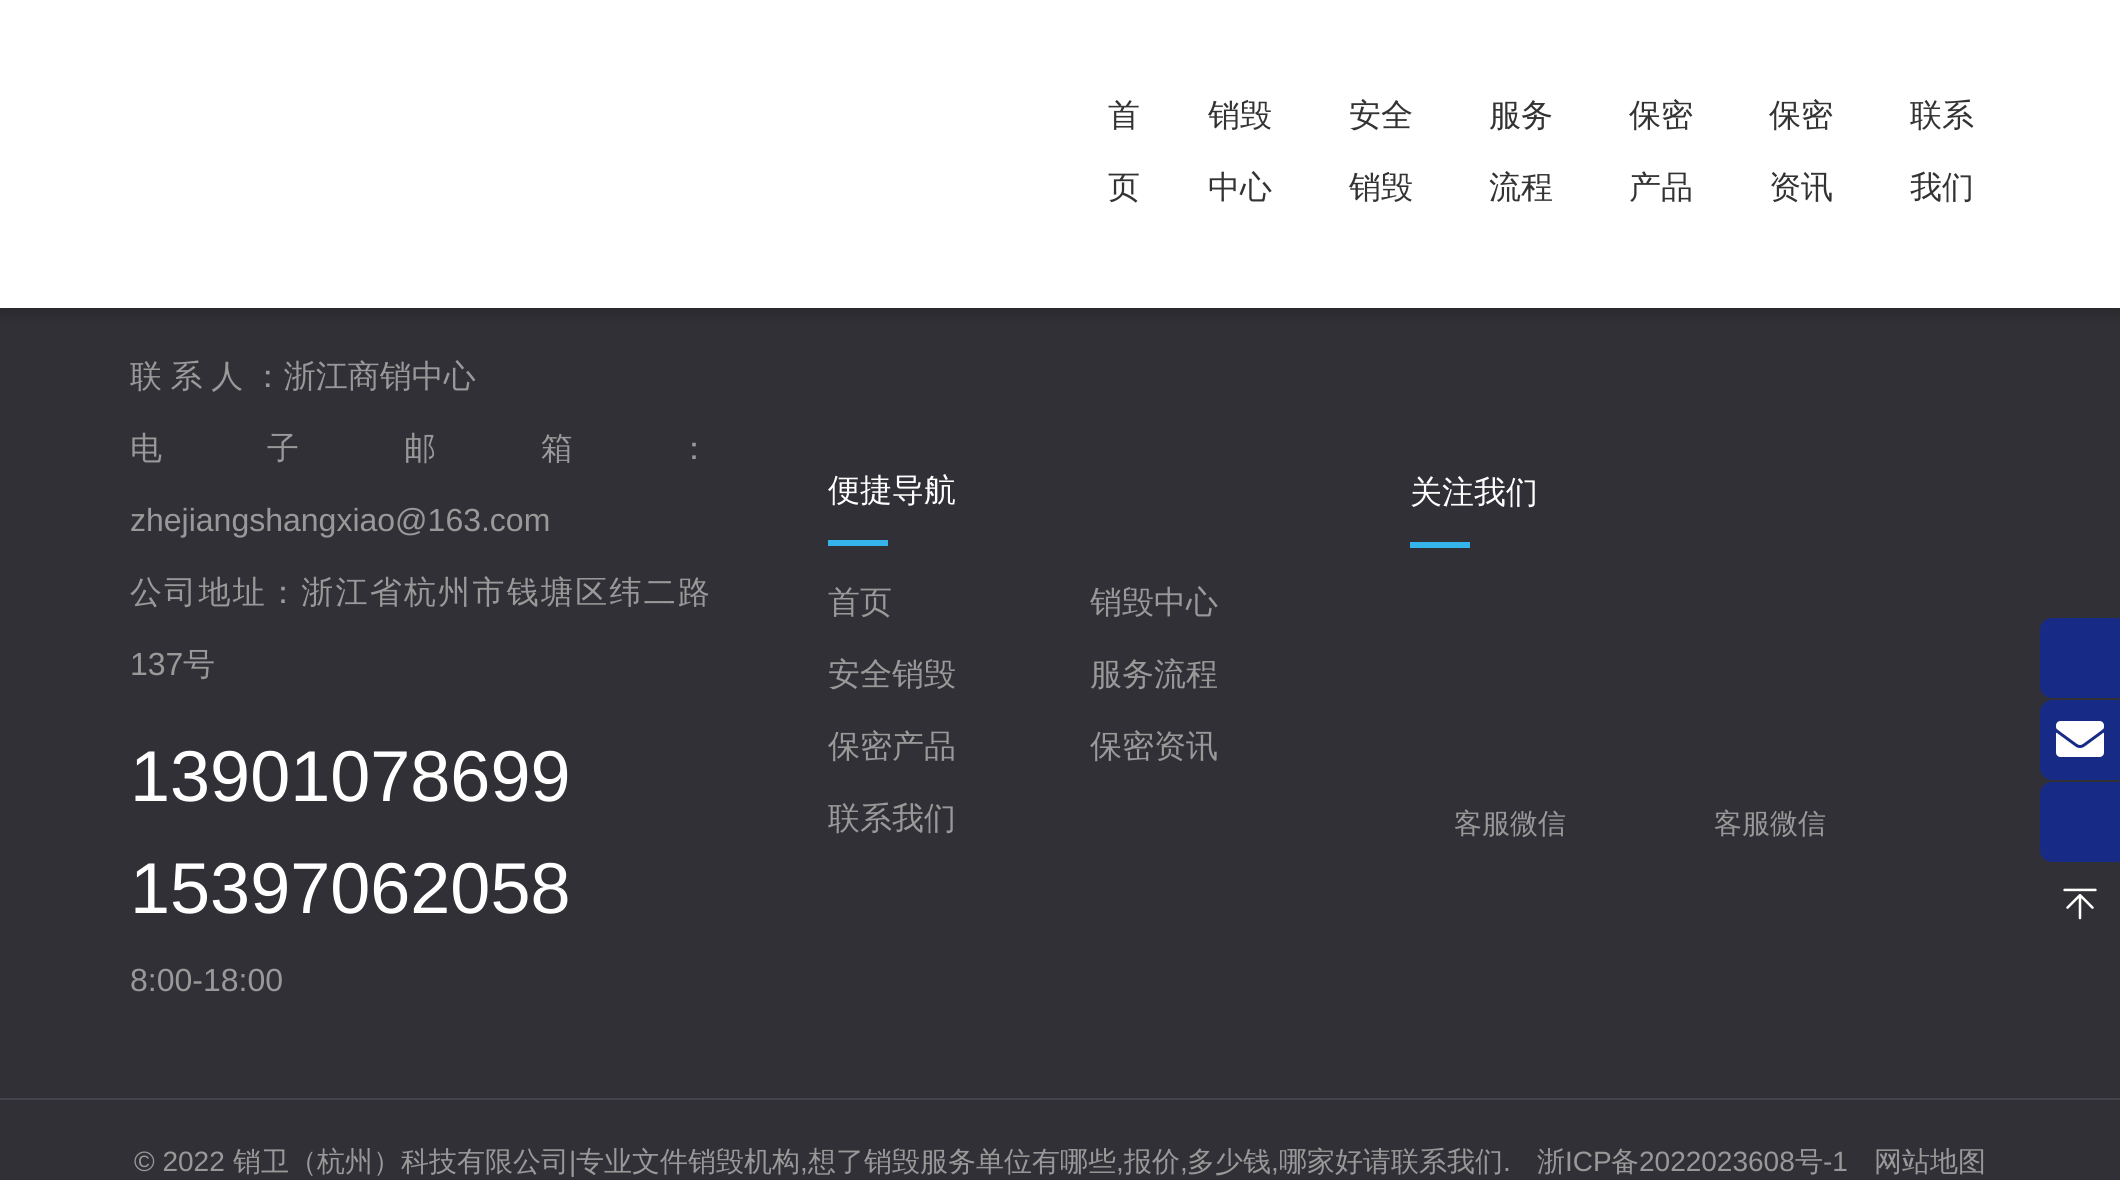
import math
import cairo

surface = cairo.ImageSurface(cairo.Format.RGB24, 2120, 1180)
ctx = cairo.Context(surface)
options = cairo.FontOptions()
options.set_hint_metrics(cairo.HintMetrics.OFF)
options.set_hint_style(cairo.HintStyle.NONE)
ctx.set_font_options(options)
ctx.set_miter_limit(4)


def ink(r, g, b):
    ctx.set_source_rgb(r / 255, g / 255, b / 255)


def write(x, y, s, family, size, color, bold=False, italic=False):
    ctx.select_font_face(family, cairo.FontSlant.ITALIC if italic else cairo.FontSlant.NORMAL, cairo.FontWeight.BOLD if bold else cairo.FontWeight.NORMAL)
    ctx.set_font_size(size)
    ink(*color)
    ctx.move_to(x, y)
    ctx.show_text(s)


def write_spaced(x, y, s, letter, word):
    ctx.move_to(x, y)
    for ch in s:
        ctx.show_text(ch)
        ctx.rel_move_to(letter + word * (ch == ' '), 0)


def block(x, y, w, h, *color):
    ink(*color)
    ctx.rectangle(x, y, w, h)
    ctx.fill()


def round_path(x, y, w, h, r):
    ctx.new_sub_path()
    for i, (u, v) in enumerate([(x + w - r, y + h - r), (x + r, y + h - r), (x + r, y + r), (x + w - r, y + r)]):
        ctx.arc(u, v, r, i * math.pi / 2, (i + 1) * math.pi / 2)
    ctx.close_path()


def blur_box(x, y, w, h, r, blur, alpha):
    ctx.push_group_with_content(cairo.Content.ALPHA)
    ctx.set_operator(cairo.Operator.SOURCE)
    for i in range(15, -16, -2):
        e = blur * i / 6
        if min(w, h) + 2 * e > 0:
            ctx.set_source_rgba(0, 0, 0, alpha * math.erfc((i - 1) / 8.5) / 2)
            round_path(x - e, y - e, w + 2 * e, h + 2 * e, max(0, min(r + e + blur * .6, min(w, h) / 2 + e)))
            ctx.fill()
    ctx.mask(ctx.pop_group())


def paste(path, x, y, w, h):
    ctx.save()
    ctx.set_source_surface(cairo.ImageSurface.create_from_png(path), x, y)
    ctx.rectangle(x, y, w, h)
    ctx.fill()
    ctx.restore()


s1 = dict(family="WenQuanYi Zen Hei Medium", size=32, color=(51, 51, 51))
s2 = dict(family="Liberation Sans", size=32, color=(153, 153, 153))
s3 = dict(family="WenQuanYi Zen Hei Medium", size=32, color=(153, 153, 153))
s4 = dict(family="Liberation Sans", size=72, color=(255, 255, 255))
s5 = dict(family="WenQuanYi Zen Hei Medium", size=32, color=(255, 255, 255))
s6 = dict(family="WenQuanYi Zen Hei Medium", size=28, color=(153, 153, 153))
s7 = dict(family="Liberation Sans", size=28, color=(153, 153, 153))

ink(48, 48, 54)
ctx.paint()
ink(0, 0, 0)
blur_box(0, 0, 2120, 308, 0, 10, 0.3)
block(0, 0, 2120, 308, 255, 255, 255)
write(1108, 126, "首", **s1)
write(1108, 198, "页", **s1)
write(1208, 126, "销毁", **s1)
write(1208, 198, "中心", **s1)
write(1349, 126, "安全", **s1)
write(1349, 198, "销毁", **s1)
write(1489, 126, "服务", **s1)
write(1489, 198, "流程", **s1)
write(1629, 126, "保密", **s1)
write(1629, 198, "产品", **s1)
write(1769, 126, "保密", **s1)
write(1769, 198, "资讯", **s1)
write(1910, 126, "联系", **s1)
write(1910, 198, "我们", **s1)
ink(153, 153, 153)
write_spaced(130, 387, "联 系 人 ：浙江商销中心", 0, -1)
write_spaced(130, 459, "电子邮箱：", 105, 0)
write(130, 531, "zhejiangshangxiao@163.com", **s2)
ctx.select_font_face("WenQuanYi Zen Hei Medium")
write_spaced(130, 603, "公司地址：浙江省杭州市钱塘区纬二路", 2.25, 0)
write(130, 675, "137", **s2)
write(183, 675, "号", **s3)
write(130, 801, "13901078699", **s4)
write(130, 913, "15397062058", **s4)
write(130, 991, "8:00-18:00", **s2)
write(828, 501, "便捷导航", **s5)
block(828, 540, 60, 6, 52, 180, 234)
write(828, 613, "首页", **s3)
write(1090, 613, "销毁中心", **s3)
write(828, 685, "安全销毁", **s3)
write(1090, 685, "服务流程", **s3)
write(828, 757, "保密产品", **s3)
write(1090, 757, "保密资讯", **s3)
write(828, 829, "联系我们", **s3)
write(1410, 503, "关注我们", **s5)
block(1410, 542, 60, 6, 52, 180, 234)
write(1454, 833, "客服微信", **s6)
write(1714, 833, "客服微信", **s6)
block(0, 1098, 2120, 2, 67, 67, 75)
write(134, 1171, "© 2022", **s7)
write(233, 1171, "销卫（杭州）科技有限公司", **s6)
write(569, 1171, "|", **s7)
write(576, 1171, "专业文件销毁机构", **s6)
write(800, 1171, ",", **s7)
write(808, 1171, "想了销毁服务单位有哪些", **s6)
write(1116, 1171, ",", **s7)
write(1124, 1171, "报价", **s6)
write(1180, 1171, ",", **s7)
write(1187, 1171, "多少钱", **s6)
write(1271, 1171, ",", **s7)
write(1279, 1171, "哪家好请联系我们", **s6)
write(1503, 1171, ".", **s7)
write(1537, 1171, "浙", **s6)
write(1565, 1171, "ICP", **s7)
write(1611, 1171, "备", **s6)
write(1639, 1171, "2022023608", **s7)
write(1795, 1171, "号", **s6)
write(1823, 1171, "-1", **s7)
write(1874, 1171, "网站地图", **s6)
ink(23, 43, 134)
ctx.new_path()
ctx.move_to(2052, 618)
ctx.line_to(2120, 618)
ctx.line_to(2120, 698)
ctx.line_to(2052, 698)
ctx.curve_to(2045.5, 698, 2040, 692.5, 2040, 686)
ctx.line_to(2040, 630)
ctx.curve_to(2040, 623.5, 2045.5, 618, 2052, 618)
ctx.close_path()
ctx.fill()
ctx.new_path()
ctx.move_to(2052, 700)
ctx.line_to(2120, 700)
ctx.line_to(2120, 780)
ctx.line_to(2052, 780)
ctx.curve_to(2045.5, 780, 2040, 774.5, 2040, 768)
ctx.line_to(2040, 712)
ctx.curve_to(2040, 705.5, 2045.5, 700, 2052, 700)
ctx.close_path()
ctx.fill()
paste("pic1.png", 2056, 721, 48, 36)
ctx.new_path()
ctx.move_to(2052, 782)
ctx.line_to(2120, 782)
ctx.line_to(2120, 862)
ctx.line_to(2052, 862)
ctx.curve_to(2045.5, 862, 2040, 856.5, 2040, 850)
ctx.line_to(2040, 794)
ctx.curve_to(2040, 787.5, 2045.5, 782, 2052, 782)
ctx.close_path()
ctx.fill()
paste("pic2.png", 2063, 888, 34, 32)
surface.write_to_png("screenshot.png")
